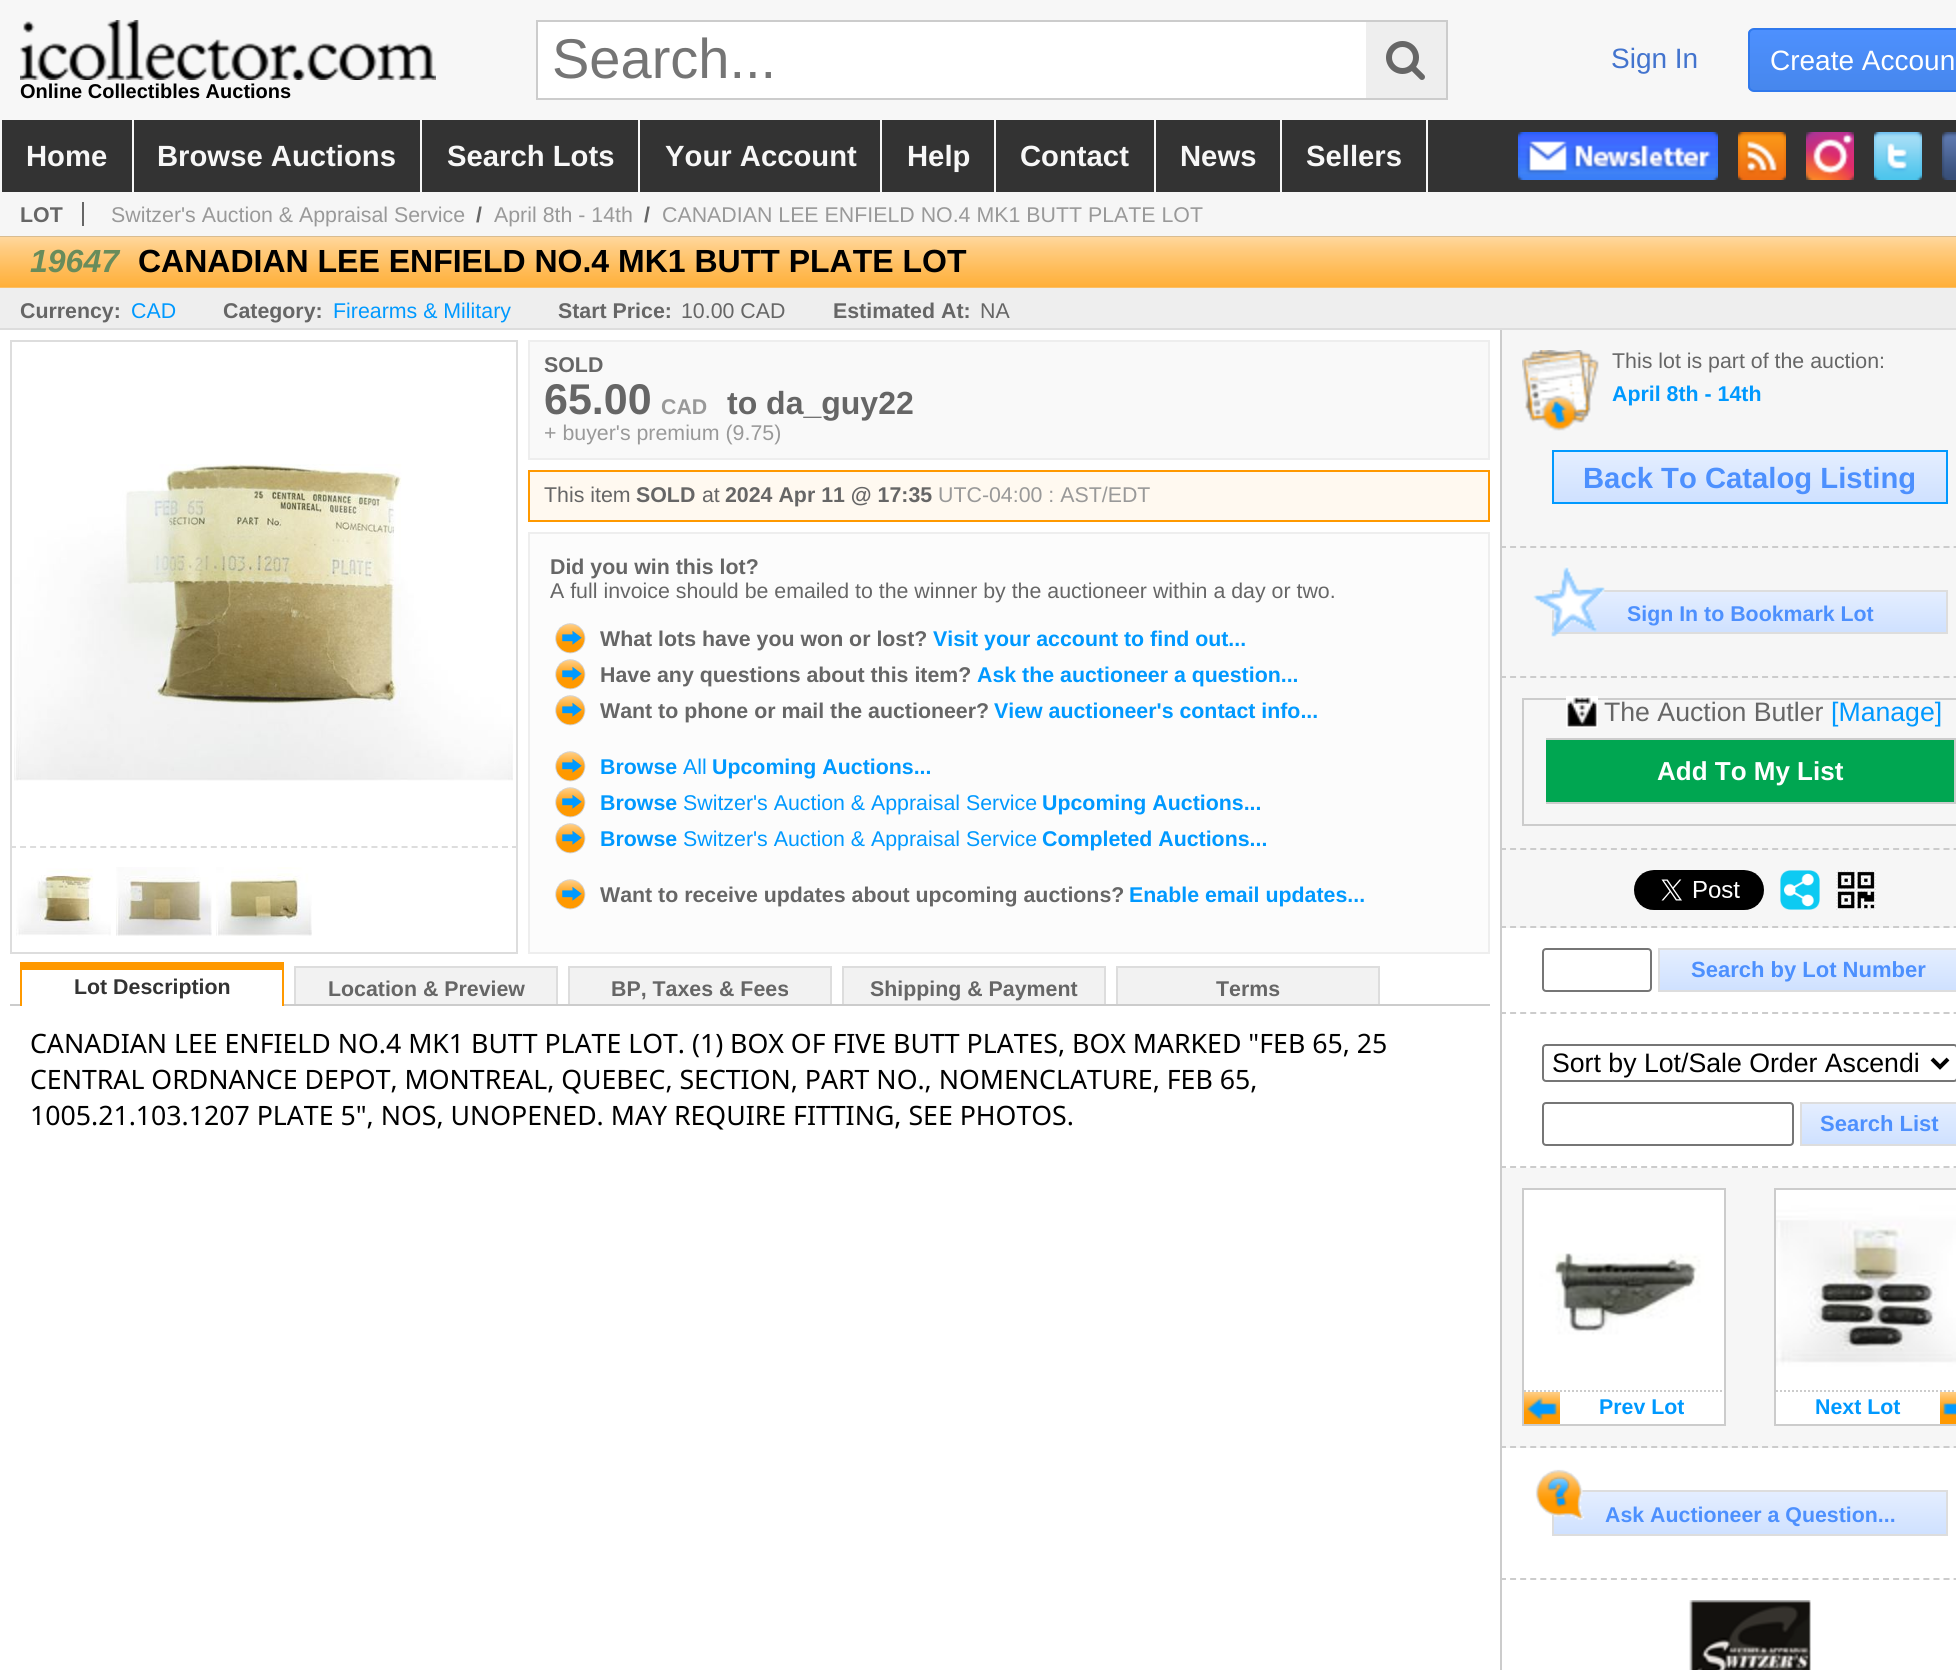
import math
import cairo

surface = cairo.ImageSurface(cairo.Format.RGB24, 1956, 1670)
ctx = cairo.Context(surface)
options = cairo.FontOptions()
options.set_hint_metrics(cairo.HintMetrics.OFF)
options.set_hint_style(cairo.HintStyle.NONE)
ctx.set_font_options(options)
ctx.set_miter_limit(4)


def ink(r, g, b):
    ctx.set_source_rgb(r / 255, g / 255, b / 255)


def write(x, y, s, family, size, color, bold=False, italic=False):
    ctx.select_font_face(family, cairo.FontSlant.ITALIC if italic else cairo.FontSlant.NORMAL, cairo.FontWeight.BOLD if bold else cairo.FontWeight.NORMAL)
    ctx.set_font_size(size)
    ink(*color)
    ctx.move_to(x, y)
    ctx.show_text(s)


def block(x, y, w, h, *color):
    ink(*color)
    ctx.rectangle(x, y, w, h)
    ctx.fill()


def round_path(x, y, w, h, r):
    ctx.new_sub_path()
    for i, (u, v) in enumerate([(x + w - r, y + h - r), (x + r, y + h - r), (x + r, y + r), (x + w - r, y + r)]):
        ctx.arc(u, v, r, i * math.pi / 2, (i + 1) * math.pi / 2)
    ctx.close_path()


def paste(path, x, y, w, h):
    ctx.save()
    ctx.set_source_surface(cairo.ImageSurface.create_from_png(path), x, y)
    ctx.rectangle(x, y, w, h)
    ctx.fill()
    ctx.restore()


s1 = dict(family="Liberation Sans", size=56, color=(117, 117, 117))
s2 = dict(family="Liberation Sans", size=28, color=(67, 116, 206))
s3 = dict(family="Liberation Sans", size=28, color=(255, 255, 255))
s4 = dict(family="Liberation Sans", size=20, color=(0, 0, 0), bold=True)
s5 = dict(family="Liberation Sans", size=29.25, color=(247, 247, 247), bold=True)
s6 = dict(family="Liberation Sans", size=21.35, color=(102, 102, 102), bold=True)
s7 = dict(family="Liberation Sans", size=21.35, color=(153, 153, 153))
s8 = dict(family="Liberation Sans", size=32, color=(105, 140, 91), bold=True, italic=True)
s9 = dict(family="Liberation Sans", size=32, color=(0, 0, 0), bold=True)
s10 = dict(family="Liberation Sans", size=21.35, color=(0, 153, 255))
s11 = dict(family="Liberation Sans", size=21.35, color=(102, 102, 102))
s12 = dict(family="Liberation Sans", size=43, color=(102, 102, 102), bold=True)
s13 = dict(family="Liberation Sans", size=21.35, color=(153, 153, 153), bold=True)
s14 = dict(family="Liberation Sans", size=32, color=(102, 102, 102), bold=True)
s15 = dict(family="Liberation Sans", size=21.35, color=(0, 153, 255), bold=True)
s16 = dict(family="Liberation Sans", size=21.35, color=(51, 51, 51), bold=True)
s17 = dict(family="Noto Sans", size=26.67, color=(0, 0, 0))
s18 = dict(family="Liberation Sans", size=29.25, color=(77, 144, 254), bold=True)
s19 = dict(family="Liberation Sans", size=21.35, color=(77, 144, 254), bold=True)
s20 = dict(family="Liberation Sans", size=26.67, color=(102, 102, 102))
s21 = dict(family="Liberation Sans", size=26.67, color=(0, 153, 255))
s22 = dict(family="Liberation Sans", size=26, color=(255, 255, 255), bold=True)
s23 = dict(family="Liberation Sans", size=22, color=(77, 144, 254), bold=True)
s24 = dict(family="Liberation Sans", size=26.67, color=(0, 0, 0))

ink(255, 255, 255)
ctx.paint()
block(0, 0, 1956, 120, 247, 247, 247)
block(538, 22, 828, 76, 255, 255, 255)
block(536, 20, 912, 2, 204, 204, 204)
block(536, 98, 830, 2, 204, 204, 204)
block(536, 20, 2, 80, 204, 204, 204)
write(552, 78, "Search...", **s1)
block(1366, 22, 80, 76, 238, 238, 238)
block(1446, 20, 2, 80, 204, 204, 204)
block(1366, 98, 82, 2, 204, 204, 204)
paste("pic1.png", 1386, 41, 39, 39)
write(1611, 68, "Sign In", **s2)
ctx.save()
round_path(1748, 28, 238, 64, 6)
ctx.clip()
gradient = cairo.LinearGradient(1867, 30, 1867, 90)
gradient.add_color_stop_rgba(0, 0.302, 0.565, 0.996, 1)
gradient.add_color_stop_rgba(1, 0.278, 0.529, 0.929, 1)
ctx.set_source(gradient)
ctx.rectangle(1748, 30, 208, 60)
ctx.fill()
ctx.restore()
round_path(1749, 29, 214, 62, 5)
ink(48, 121, 237)
ctx.stroke()
write(1770, 70, "Create Accoun", **s3)
paste("pic2.png", 20, 20, 416, 60)
write(20, 98, "Online Collectibles Auctions", **s4)
block(2, 120, 1954, 72, 51, 51, 51)
block(0, 120, 2, 72, 247, 247, 247)
write(26, 166, "Home", **s5)
block(132, 120, 2, 72, 247, 247, 247)
write(157, 166, "Browse Auctions", **s5)
block(420, 120, 2, 72, 247, 247, 247)
write(447, 166, "Search Lots", **s5)
block(638, 120, 2, 72, 247, 247, 247)
write(665, 166, "Your Account", **s5)
block(880, 120, 2, 72, 247, 247, 247)
write(907, 166, "Help", **s5)
block(994, 120, 2, 72, 247, 247, 247)
write(1020, 166, "Contact", **s5)
block(1154, 120, 2, 72, 247, 247, 247)
write(1180, 166, "News", **s5)
block(1426, 120, 2, 72, 247, 247, 247)
block(1280, 120, 2, 72, 247, 247, 247)
write(1306, 166, "Sellers", **s5)
paste("pic3.png", 1518, 132, 200, 48)
paste("pic4.png", 1738, 132, 48, 48)
paste("pic5.png", 1806, 132, 48, 48)
paste("pic6.png", 1874, 132, 48, 48)
paste("pic7.png", 1942, 132, 14, 48)
block(0, 192, 1956, 44, 246, 246, 246)
write(20, 222, "LOT", **s6)
block(82, 202, 2, 24, 102, 102, 102)
write(111, 222, "Switzer's Auction & Appraisal Service", **s7)
write(476, 222, "/", **s6)
write(494, 222, "April 8th - 14th", **s7)
write(644, 222, "/", **s6)
write(662, 222, "CANADIAN LEE ENFIELD NO.4 MK1 BUTT PLATE LOT", **s7)
paste("pic8.png", 0, 236, 1956, 52)
write(30, 272, "19647", **s8)
write(138, 272, "CANADIAN LEE ENFIELD NO.4 MK1 BUTT PLATE LOT", **s9)
block(0, 288, 1956, 40, 238, 238, 238)
block(0, 328, 1956, 2, 221, 221, 221)
write(20, 318, "Currency:", **s6)
write(131, 318, "CAD", **s10)
write(223, 318, "Category:", **s6)
write(333, 318, "Firearms & Military", **s10)
write(558, 318, "Start Price:", **s6)
write(681, 318, "10.00 CAD", **s11)
write(833, 318, "Estimated At:", **s6)
write(980, 318, "NA", **s11)
block(10, 340, 508, 2, 221, 221, 221)
block(516, 340, 2, 506, 221, 221, 221)
block(10, 340, 2, 506, 221, 221, 221)
paste("pic9.png", 14, 464, 499, 317)
ctx.new_path()
ctx.move_to(10, 847)
ctx.line_to(518, 847)
ctx.set_dash([6, 4.04])
ctx.stroke()
block(516, 846, 2, 108, 221, 221, 221)
block(10, 952, 508, 2, 221, 221, 221)
block(10, 846, 2, 108, 221, 221, 221)
paste("pic10.png", 16, 868, 95, 68)
paste("pic11.png", 116, 867, 96, 69)
paste("pic12.png", 216, 867, 96, 69)
ink(249, 249, 249)
ctx.rectangle(529, 341, 960, 118)
ctx.fill_preserve()
ink(238, 238, 238)
ctx.set_dash([])
ctx.stroke()
write(544, 372, "SOLD", **s6)
write(544, 414, "65.00", **s12)
write(661, 414, "CAD", **s13)
write(727, 414, "to da_guy22", **s14)
write(544, 440, "+ buyer's premium (9.75)", **s7)
ink(255, 249, 240)
ctx.rectangle(529, 471, 960, 50)
ctx.fill_preserve()
ink(255, 153, 0)
ctx.stroke()
write(544, 502, "This item", **s11)
write(636, 502, "SOLD", **s6)
write(702, 502, "at", **s11)
write(725, 502, "2024 Apr 11 @ 17:35", **s6)
write(938, 502, "UTC-04:00 : AST/EDT", **s7)
ink(252, 252, 252)
ctx.rectangle(529, 533, 960, 420)
ctx.fill_preserve()
ink(238, 238, 238)
ctx.stroke()
write(550, 574, "Did you win this lot?", **s6)
write(550, 598, "A full invoice should be emailed to the winner by the auctioneer within a day or two.", **s11)
paste("pic13.png", 555, 623, 31, 31)
write(600, 646, "What lots have you won or lost?", **s6)
write(933, 646, "Visit your account to find out...", **s15)
paste("pic13.png", 555, 659, 31, 31)
write(600, 682, "Have any questions about this item?", **s6)
write(977, 682, "Ask the auctioneer a question...", **s15)
paste("pic13.png", 555, 695, 31, 31)
write(600, 718, "Want to phone or mail the auctioneer?", **s6)
write(994, 718, "View auctioneer's contact info...", **s15)
paste("pic13.png", 555, 751, 31, 31)
write(600, 774, "Browse", **s15)
write(683, 774, "All", **s10)
write(712, 774, "Upcoming Auctions...", **s15)
paste("pic13.png", 555, 787, 31, 31)
write(600, 810, "Browse", **s15)
write(683, 810, "Switzer's Auction & Appraisal Service", **s10)
write(1042, 810, "Upcoming Auctions...", **s15)
paste("pic13.png", 555, 823, 31, 31)
write(600, 846, "Browse", **s15)
write(683, 846, "Switzer's Auction & Appraisal Service", **s10)
write(1042, 846, "Completed Auctions...", **s15)
paste("pic13.png", 555, 879, 31, 31)
write(600, 902, "Want to receive updates about upcoming auctions?", **s6)
write(1129, 902, "Enable email updates...", **s15)
block(10, 1004, 1480, 2, 204, 204, 204)
block(22, 1004, 260, 2, 255, 255, 255)
block(20, 962, 264, 8, 255, 153, 0)
block(282, 962, 2, 44, 255, 153, 0)
block(20, 962, 2, 44, 255, 153, 0)
write(74, 994, "Lot Description", **s16)
block(296, 968, 260, 36, 242, 242, 242)
block(294, 966, 264, 2, 221, 221, 221)
block(556, 966, 2, 38, 221, 221, 221)
block(294, 966, 2, 38, 221, 221, 221)
write(328, 996, "Location & Preview", **s6)
block(570, 968, 260, 36, 242, 242, 242)
block(568, 966, 264, 2, 221, 221, 221)
block(830, 966, 2, 38, 221, 221, 221)
block(568, 966, 2, 38, 221, 221, 221)
write(611, 996, "BP, Taxes & Fees", **s6)
block(844, 968, 260, 36, 242, 242, 242)
block(842, 966, 264, 2, 221, 221, 221)
block(1104, 966, 2, 38, 221, 221, 221)
block(842, 966, 2, 38, 221, 221, 221)
write(870, 996, "Shipping & Payment", **s6)
block(1118, 968, 260, 36, 242, 242, 242)
block(1116, 966, 264, 2, 221, 221, 221)
block(1378, 966, 2, 38, 221, 221, 221)
block(1116, 966, 2, 38, 221, 221, 221)
write(1216, 996, "Terms", **s6)
write(30, 1053, "CANADIAN LEE ENFIELD NO.4 MK1 BUTT PLATE LOT. (1) BOX OF FIVE BUTT PLATES, BOX MARKED \"FEB 65, 25", **s17)
write(30, 1089, "CENTRAL ORDNANCE DEPOT, MONTREAL, QUEBEC, SECTION, PART NO., NOMENCLATURE, FEB 65,", **s17)
write(30, 1125, "1005.21.103.1207 PLATE 5\", NOS, UNOPENED. MAY REQUIRE FITTING, SEE PHOTOS.", **s17)
block(1502, 330, 454, 598, 246, 246, 246)
ctx.new_path()
ctx.move_to(1500, 547)
ctx.line_to(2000, 547)
ink(204, 204, 204)
ctx.set_dash([6, 4.08])
ctx.stroke()
block(1500, 330, 2, 218, 204, 204, 204)
paste("pic14.png", 1522, 350, 77, 81)
write(1612, 368, "This lot is part of the auction:", **s11)
write(1612, 401, "April 8th - 14th", **s15)
gradient = cairo.LinearGradient(1750, 452, 1750, 502)
gradient.add_color_stop_rgba(0, 0.894, 0.933, 1, 1)
gradient.add_color_stop_rgba(1, 0.812, 0.882, 1, 1)
ctx.set_source(gradient)
ctx.rectangle(1554, 452, 392, 50)
ctx.fill()
ctx.rectangle(1553, 451, 394, 52)
ink(0, 153, 255)
ctx.set_dash([])
ctx.stroke()
write(1583, 488, "Back To Catalog Listing", **s18)
ctx.new_path()
ctx.move_to(1500, 677)
ctx.line_to(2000, 677)
ink(204, 204, 204)
ctx.set_dash([6, 4.08])
ctx.stroke()
block(1500, 548, 2, 130, 204, 204, 204)
gradient = cairo.LinearGradient(1750, 592, 1750, 632)
gradient.add_color_stop_rgba(0, 0.894, 0.933, 1, 1)
gradient.add_color_stop_rgba(1, 0.812, 0.882, 1, 1)
ctx.set_source(gradient)
ctx.rectangle(1554, 592, 392, 40)
ctx.fill()
ctx.rectangle(1553, 591, 394, 42)
ink(221, 221, 221)
ctx.set_dash([])
ctx.stroke()
paste("pic15.png", 1533, 566, 72, 72)
write(1627, 621, "Sign In to Bookmark Lot", **s19)
ctx.new_path()
ctx.move_to(1500, 849)
ctx.line_to(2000, 849)
ink(204, 204, 204)
ctx.set_dash([6, 4.08])
ctx.stroke()
block(1500, 678, 2, 172, 204, 204, 204)
ctx.rectangle(1523, 699, 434, 126)
ctx.set_dash([])
ctx.stroke()
paste("pic16.png", 1566, 696, 32, 32)
write(1604, 721, "The Auction Butler", **s20)
write(1831, 721, "[Manage]", **s21)
block(1546, 740, 408, 62, 0, 166, 81)
block(1546, 738, 410, 2, 204, 204, 204)
block(1954, 738, 2, 66, 204, 204, 204)
block(1546, 802, 410, 2, 204, 204, 204)
write(1657, 780, "Add To My List", **s22)
ctx.new_path()
ctx.move_to(1500, 927)
ctx.line_to(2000, 927)
ink(204, 204, 204)
ctx.set_dash([6, 4.08])
ctx.stroke()
block(1500, 850, 2, 78, 204, 204, 204)
paste("pic17.png", 1634, 870, 130, 40)
paste("pic18.png", 1780, 870, 40, 40)
paste("pic19.png", 1836, 870, 40, 40)
ctx.new_path()
ctx.move_to(1500, 1013)
ctx.line_to(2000, 1013)
ctx.stroke()
block(1500, 928, 2, 86, 204, 204, 204)
round_path(1543, 949, 108, 42, 3)
ink(118, 118, 118)
ctx.set_dash([])
ctx.stroke()
gradient = cairo.LinearGradient(1808, 950, 1808, 990)
gradient.add_color_stop_rgba(0, 0.894, 0.933, 1, 1)
gradient.add_color_stop_rgba(1, 0.812, 0.882, 1, 1)
ctx.set_source(gradient)
ctx.rectangle(1660, 950, 296, 40)
ctx.fill()
ctx.rectangle(1659, 949, 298, 42)
ink(221, 221, 221)
ctx.stroke()
write(1691, 977, "Search by Lot Number", **s23)
ctx.new_path()
ctx.move_to(1500, 1167)
ctx.line_to(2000, 1167)
ink(204, 204, 204)
ctx.set_dash([6, 4.08])
ctx.stroke()
block(1500, 1014, 2, 154, 204, 204, 204)
round_path(1543, 1045, 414, 36, 3)
ink(118, 118, 118)
ctx.set_dash([])
ctx.stroke()
ctx.new_path()
ctx.move_to(1932, 1059)
ctx.line_to(1940, 1067)
ctx.line_to(1948, 1059)
ink(0, 0, 0)
ctx.set_line_width(4)
ctx.stroke()
write(1552, 1072, "Sort by Lot/Sale Order Ascendi", **s24)
round_path(1543, 1103, 250, 42, 3)
ink(118, 118, 118)
ctx.set_line_width(2)
ctx.stroke()
gradient = cairo.LinearGradient(1879, 1104, 1879, 1144)
gradient.add_color_stop_rgba(0, 0.894, 0.933, 1, 1)
gradient.add_color_stop_rgba(1, 0.812, 0.882, 1, 1)
ctx.set_source(gradient)
ctx.rectangle(1802, 1104, 154, 40)
ctx.fill()
ctx.rectangle(1801, 1103, 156, 42)
ink(221, 221, 221)
ctx.stroke()
write(1820, 1131, "Search List", **s23)
block(1502, 1168, 454, 280, 246, 246, 246)
ctx.new_path()
ctx.move_to(1500, 1447)
ctx.line_to(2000, 1447)
ink(204, 204, 204)
ctx.set_dash([6, 4.08])
ctx.stroke()
block(1500, 1168, 2, 280, 204, 204, 204)
ctx.rectangle(1523, 1189, 202, 236)
ctx.set_dash([])
ctx.stroke()
paste("pic20.png", 1524, 1190, 200, 200)
block(1526, 1390, 198, 34, 255, 255, 255)
ctx.new_path()
ctx.move_to(1524, 1391)
ctx.line_to(1724, 1391)
ink(204, 204, 204)
ctx.set_dash([2, 2])
ctx.stroke()
paste("pic21.png", 1524, 1392, 36, 32)
write(1599, 1414, "Prev Lot", **s15)
ctx.rectangle(1775, 1189, 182, 236)
ink(204, 204, 204)
ctx.set_dash([])
ctx.stroke()
paste("pic22.png", 1776, 1190, 180, 200)
block(1776, 1390, 180, 34, 255, 255, 255)
ctx.new_path()
ctx.move_to(1776, 1391)
ctx.line_to(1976, 1391)
ink(204, 204, 204)
ctx.set_dash([2, 2])
ctx.stroke()
write(1815, 1414, "Next Lot", **s15)
paste("pic23.png", 1940, 1392, 16, 32)
ctx.new_path()
ctx.move_to(1500, 1579)
ctx.line_to(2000, 1579)
ink(204, 204, 204)
ctx.set_dash([6, 4.08])
ctx.stroke()
block(1500, 1448, 2, 222, 204, 204, 204)
gradient = cairo.LinearGradient(1750, 1492, 1750, 1534)
gradient.add_color_stop_rgba(0, 0.894, 0.933, 1, 1)
gradient.add_color_stop_rgba(1, 0.812, 0.882, 1, 1)
ctx.set_source(gradient)
ctx.rectangle(1554, 1492, 392, 42)
ctx.fill()
ctx.rectangle(1553, 1491, 394, 44)
ink(221, 221, 221)
ctx.set_dash([])
ctx.stroke()
paste("pic24.png", 1535, 1469, 50, 51)
write(1605, 1522, "Ask Auctioneer a Question...", **s19)
paste("pic25.png", 1689, 1600, 122, 70)
surface.write_to_png("screenshot.png")
